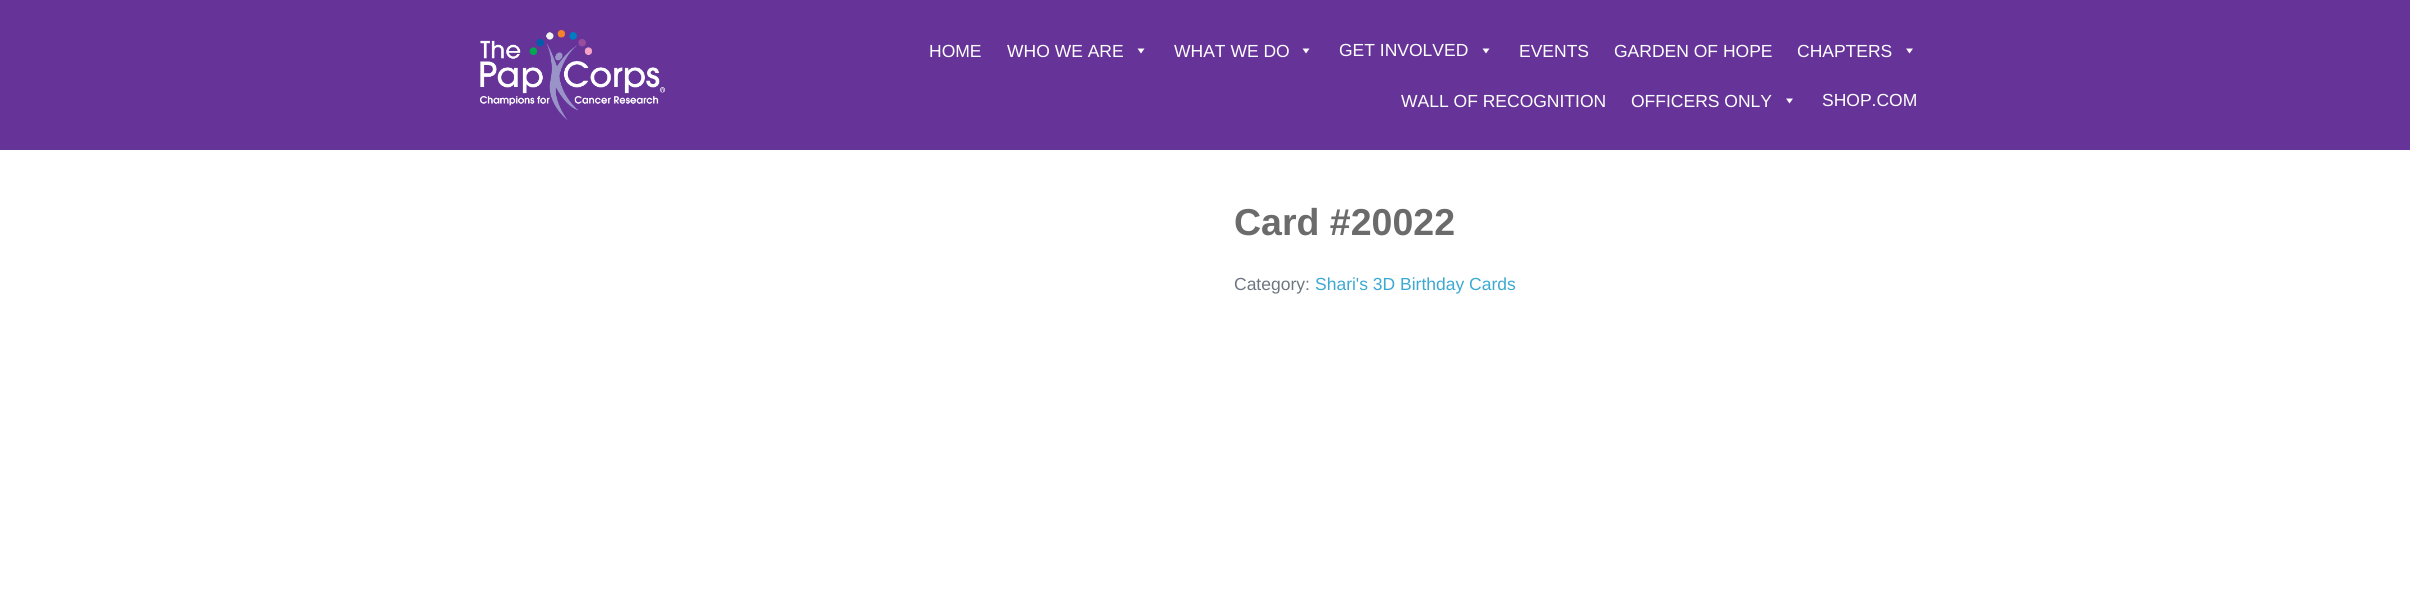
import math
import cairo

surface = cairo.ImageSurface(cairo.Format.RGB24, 2410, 592)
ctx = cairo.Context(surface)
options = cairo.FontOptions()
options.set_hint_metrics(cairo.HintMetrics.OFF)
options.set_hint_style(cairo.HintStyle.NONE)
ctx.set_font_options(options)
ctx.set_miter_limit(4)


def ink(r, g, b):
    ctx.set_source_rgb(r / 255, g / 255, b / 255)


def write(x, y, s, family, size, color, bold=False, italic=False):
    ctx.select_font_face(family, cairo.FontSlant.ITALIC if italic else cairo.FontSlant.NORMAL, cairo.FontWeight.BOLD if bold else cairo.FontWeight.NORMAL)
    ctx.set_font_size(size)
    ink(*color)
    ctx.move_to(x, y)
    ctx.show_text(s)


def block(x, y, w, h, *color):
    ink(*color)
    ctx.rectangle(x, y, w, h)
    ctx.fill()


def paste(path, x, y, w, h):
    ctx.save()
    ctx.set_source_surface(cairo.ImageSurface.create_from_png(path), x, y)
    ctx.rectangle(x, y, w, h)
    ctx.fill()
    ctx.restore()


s1 = dict(family="Liberation Sans", size=17.5, color=(255, 255, 255))
s2 = dict(family="Liberation Sans", size=37.5, color=(107, 107, 107), bold=True)
s3 = dict(family="Liberation Sans", size=17.5, color=(109, 118, 128))
s4 = dict(family="Liberation Sans", size=17.5, color=(59, 169, 210))

ink(255, 255, 255)
ctx.paint()
block(0, 0, 2410, 150, 102, 51, 153)
paste("pic1.png", 480, 30, 185, 90)
write(929, 57, "HOME", **s1)
write(1007, 57, "WHO WE ARE", **s1)
ctx.new_path()
ctx.move_to(1144.5, 48.5)
ctx.line_to(1141, 53.5)
ctx.line_to(1137.5, 48.5)
ctx.close_path()
ctx.fill()
write(1174, 57, "WHAT WE DO", **s1)
ctx.new_path()
ctx.move_to(1309.5, 48.5)
ctx.line_to(1306, 53.5)
ctx.line_to(1302.5, 48.5)
ctx.close_path()
ctx.fill()
write(1339, 56, "GET INVOLVED", **s1)
ctx.new_path()
ctx.move_to(1489.5, 48.5)
ctx.line_to(1486, 53.5)
ctx.line_to(1482.5, 48.5)
ctx.close_path()
ctx.fill()
write(1519, 57, "EVENTS", **s1)
write(1614, 57, "GARDEN OF HOPE", **s1)
write(1797, 57, "CHAPTERS", **s1)
ctx.new_path()
ctx.move_to(1913, 48.5)
ctx.line_to(1909.5, 53.5)
ctx.line_to(1906, 48.5)
ctx.close_path()
ctx.fill()
write(1401, 107, "WALL OF RECOGNITION", **s1)
write(1631, 107, "OFFICERS ONLY", **s1)
ctx.new_path()
ctx.move_to(1793, 98.5)
ctx.line_to(1789.5, 103.5)
ctx.line_to(1786, 98.5)
ctx.close_path()
ctx.fill()
write(1822, 106, "SHOP.COM", **s1)
write(1234, 235, "Card #20022", **s2)
write(1234, 290, "Category:", **s3)
write(1315, 290, "Shari's 3D Birthday Cards", **s4)
surface.write_to_png("screenshot.png")
